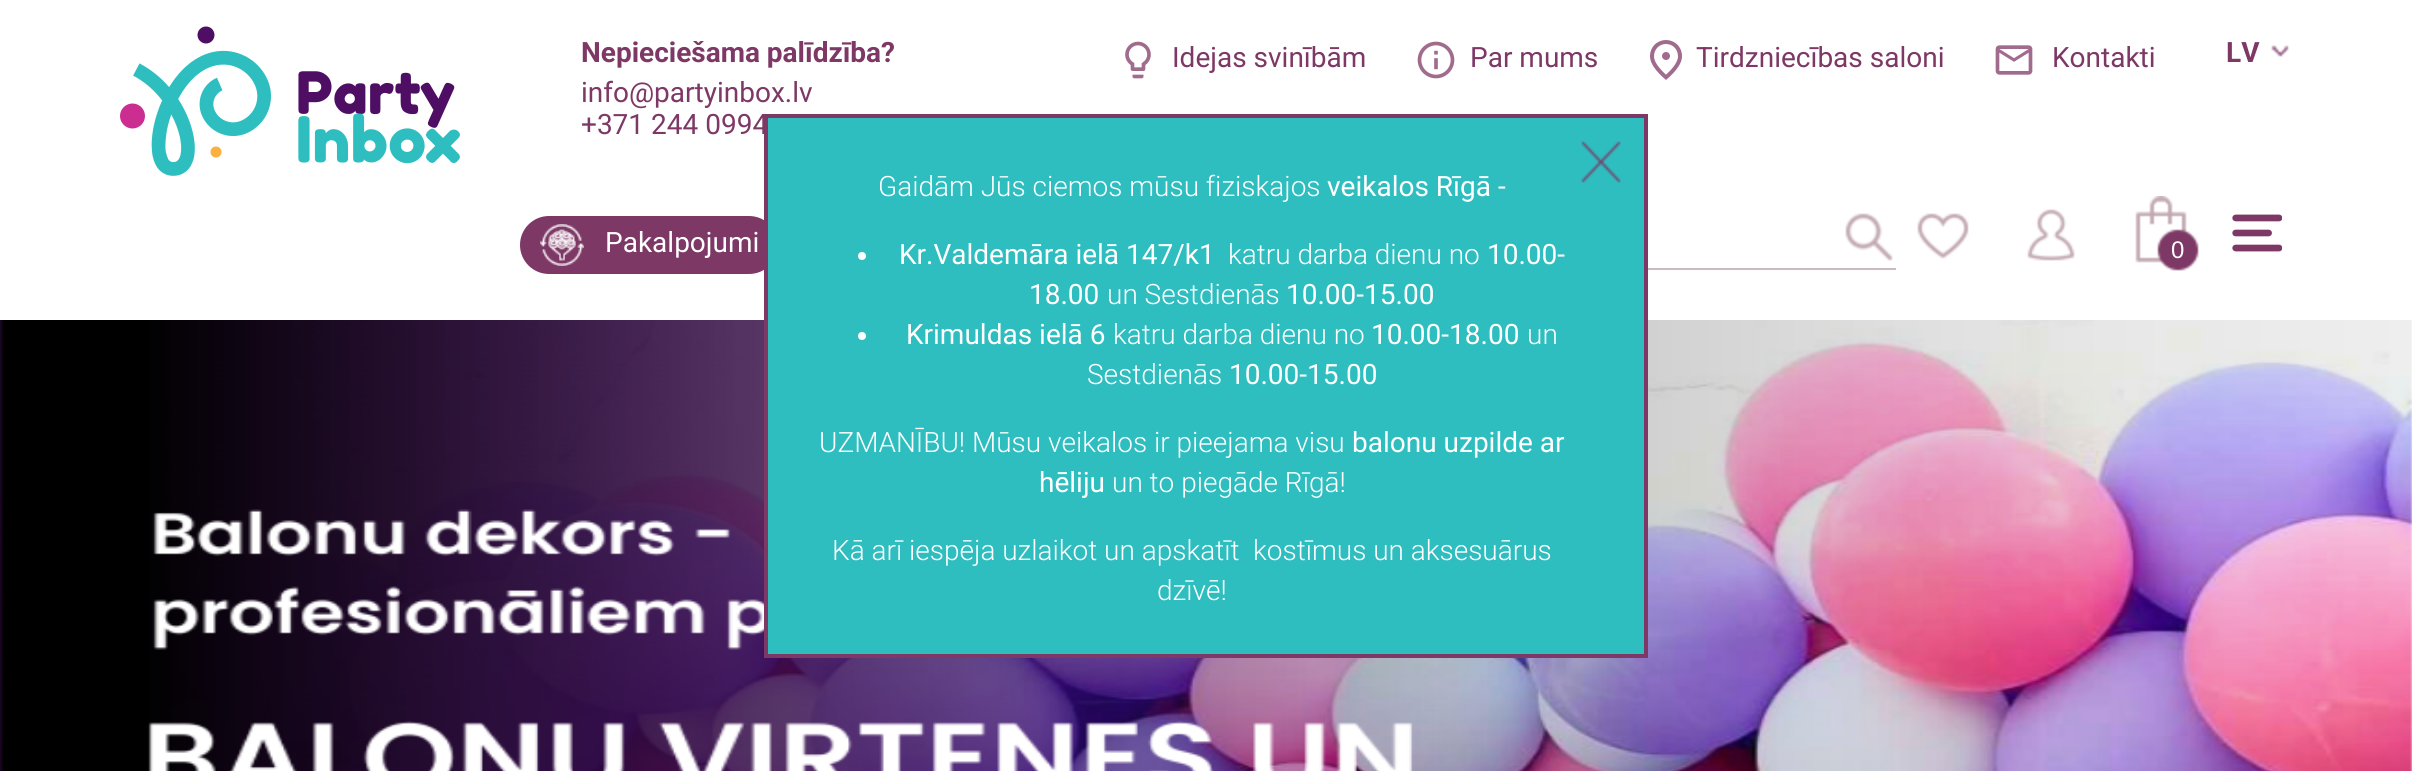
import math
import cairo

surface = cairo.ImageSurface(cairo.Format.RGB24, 2412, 771)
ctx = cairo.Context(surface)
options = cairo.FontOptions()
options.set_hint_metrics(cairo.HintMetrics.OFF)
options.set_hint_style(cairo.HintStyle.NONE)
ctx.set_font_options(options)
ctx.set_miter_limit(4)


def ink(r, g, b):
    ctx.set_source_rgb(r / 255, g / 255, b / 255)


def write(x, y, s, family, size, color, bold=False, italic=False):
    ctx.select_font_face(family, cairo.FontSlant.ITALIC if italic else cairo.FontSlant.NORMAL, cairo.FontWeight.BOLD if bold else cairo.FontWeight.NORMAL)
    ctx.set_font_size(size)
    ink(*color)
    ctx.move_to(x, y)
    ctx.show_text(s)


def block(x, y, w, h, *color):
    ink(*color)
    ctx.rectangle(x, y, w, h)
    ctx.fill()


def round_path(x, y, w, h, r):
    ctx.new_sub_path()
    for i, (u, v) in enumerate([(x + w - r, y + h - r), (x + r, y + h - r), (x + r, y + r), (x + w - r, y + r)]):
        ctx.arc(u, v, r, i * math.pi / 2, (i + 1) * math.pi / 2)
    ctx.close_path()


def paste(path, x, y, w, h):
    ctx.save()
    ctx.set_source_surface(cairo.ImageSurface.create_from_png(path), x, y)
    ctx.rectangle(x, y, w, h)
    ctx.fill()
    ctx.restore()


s1 = dict(family="Roboto", size=28, color=(125, 56, 101), bold=True)
s2 = dict(family="Roboto", size=28, color=(125, 56, 101))
s3 = dict(family="Roboto", size=28, color=(255, 255, 255))
s4 = dict(family="Liberation Sans", size=24, color=(255, 255, 255))
s5 = dict(family="Roboto Light", size=28, color=(255, 255, 255))

ink(255, 255, 255)
ctx.paint()
paste("pic1.png", 120, 26, 340, 150)
write(581, 62, "Nepieciešama palīdzība?", **s1)
write(581, 102, "info@partyinbox.lv", **s2)
write(581, 134, "+371 244 0994", **s2)
paste("pic2.png", 1125, 41, 26, 38)
write(1172, 67, "Idejas svinībām", **s2)
paste("pic3.png", 1417, 41, 38, 38)
write(1470, 67, "Par mums", **s2)
paste("pic4.png", 1650, 40, 32, 40)
write(1696, 67, "Tirdzniecības saloni", **s2)
paste("pic5.png", 1995, 45, 38, 30)
write(2052, 67, "Kontakti", **s2)
write(2226, 62, "LV", **s1)
paste("pic6.png", 2271, 45, 18, 12)
round_path(520, 216, 258, 58, 29)
ctx.fill()
paste("pic7.png", 540, 224, 44, 42)
write(605, 252, "Pakalpojumi", **s3)
paste("pic8.png", 1845, 213, 48, 48)
block(1648, 268, 248, 2, 207, 185, 193)
paste("pic9.png", 1917, 213, 52, 46)
paste("pic10.png", 2027, 209, 48, 52)
paste("pic11.png", 2135, 196, 64, 75)
write(2171, 258, "0", **s4)
paste("pic12.png", 2232, 214, 50, 38)
paste("pic14.png", 0, 320, 2412, 451)
ink(46, 190, 192)
ctx.rectangle(766, 116, 880, 540)
ctx.fill_preserve()
ink(125, 56, 101)
ctx.set_line_width(4)
ctx.stroke()
paste("pic13.png", 1581, 141, 40, 42)
write(878, 196, "Gaidām Jūs ciemos mūsu fiziskajos", **s5)
write(1327, 196, "veikalos Rīgā -", **s3)
ctx.new_path()
ctx.arc(862, 256, 4, 0, 2 * math.pi)
ctx.fill()
write(899, 264, "Kr.Valdemāra ielā 147/k1", **s3)
write(1228, 264, "katru darba dienu no", **s5)
write(1487, 264, "10.00-", **s3)
write(1029, 304, "18.00", **s3)
write(1107, 304, "un Sestdienās", **s5)
write(1286, 304, "10.00-15.00", **s3)
ctx.new_path()
ctx.arc(862, 336, 4, 0, 2 * math.pi)
ctx.fill()
write(906, 344, "Krimuldas ielā 6", **s3)
write(1113, 344, "katru darba dienu no", **s5)
write(1371, 344, "10.00-18.00", **s3)
write(1527, 344, "un", **s5)
write(1087, 384, "Sestdienās", **s5)
write(1229, 384, "10.00-15.00", **s3)
write(819, 452, "UZMANĪBU! Mūsu veikalos ir pieejama visu", **s5)
write(1352, 452, "balonu uzpilde ar", **s3)
write(1039, 492, "hēliju", **s3)
write(1112, 492, "un to piegāde Rīgā!", **s5)
write(832, 560, "Kā arī iespēja uzlaikot un apskatīt  kostīmus un aksesuārus", **s5)
write(1157, 600, "dzīvē!", **s5)
surface.write_to_png("screenshot.png")
